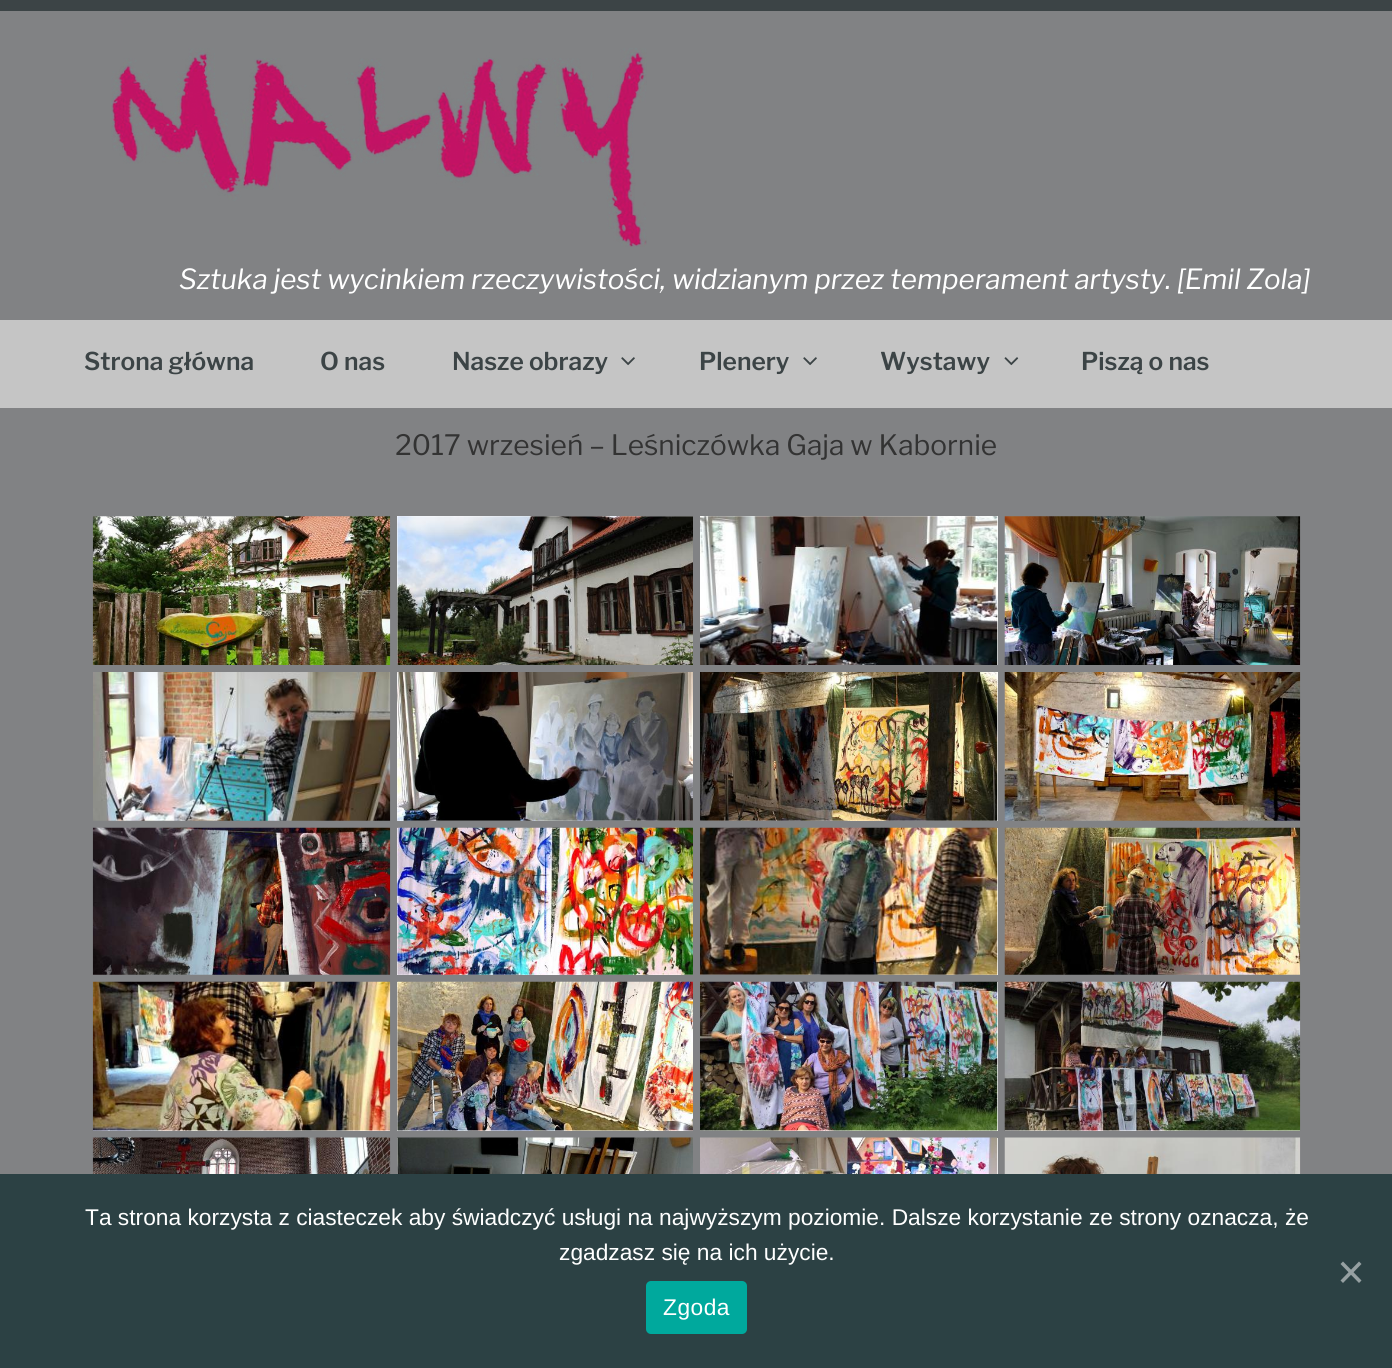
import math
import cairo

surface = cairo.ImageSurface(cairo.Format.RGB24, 1392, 1368)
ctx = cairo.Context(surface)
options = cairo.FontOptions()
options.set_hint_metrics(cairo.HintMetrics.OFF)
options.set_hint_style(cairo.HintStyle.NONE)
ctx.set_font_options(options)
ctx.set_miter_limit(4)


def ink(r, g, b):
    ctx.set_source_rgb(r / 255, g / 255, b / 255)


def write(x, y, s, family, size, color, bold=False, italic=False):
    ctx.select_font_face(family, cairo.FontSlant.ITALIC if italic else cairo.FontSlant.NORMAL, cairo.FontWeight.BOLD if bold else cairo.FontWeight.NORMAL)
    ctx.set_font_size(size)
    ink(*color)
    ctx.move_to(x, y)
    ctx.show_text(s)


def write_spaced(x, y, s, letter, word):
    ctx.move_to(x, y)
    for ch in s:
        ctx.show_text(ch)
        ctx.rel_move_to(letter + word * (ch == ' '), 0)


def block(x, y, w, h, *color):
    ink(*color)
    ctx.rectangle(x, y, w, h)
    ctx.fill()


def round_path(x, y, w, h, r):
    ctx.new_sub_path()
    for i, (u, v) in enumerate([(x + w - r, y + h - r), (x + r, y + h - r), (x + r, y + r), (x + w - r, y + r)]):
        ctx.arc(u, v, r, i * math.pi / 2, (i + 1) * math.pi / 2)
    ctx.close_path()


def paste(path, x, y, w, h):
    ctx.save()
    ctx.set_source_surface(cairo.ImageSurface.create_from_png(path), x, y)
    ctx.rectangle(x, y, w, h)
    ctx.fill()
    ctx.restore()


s1 = dict(family="Libre Franklin", size=27.7, color=(255, 255, 255), italic=True)
s2 = dict(family="Libre Franklin SemiBold", size=24.5, color=(60, 68, 70))
s3 = dict(family="Libre Franklin", size=28, color=(51, 51, 51))
s4 = dict(family="Liberation Sans", size=22.75, color=(255, 255, 255))

ink(60, 68, 70)
ctx.paint()
block(0, 11, 1392, 1163, 129, 130, 132)
paste("pic1.png", 111, 48, 536, 199)
write(179, 289, "Sztuka jest wycinkiem rzeczywistości, widzianym przez temperament artysty. [Emil Zola]", **s1)
block(0, 320, 1392, 88, 197, 197, 197)
write(84, 370, "Strona główna", **s2)
write(320, 370, "O nas", **s2)
write(452, 370, "Nasze obrazy", **s2)
paste("pic2.png", 621, 357, 14, 9)
write(699, 370, "Plenery", **s2)
paste("pic2.png", 803, 357, 14, 9)
write(880, 370, "Wystawy", **s2)
paste("pic3.png", 1004, 357, 15, 9)
write(1081, 370, "Piszą o nas", **s2)
write(395, 455, "2017 wrzesień – Leśniczówka Gaja w Kabornie", **s3)
paste("pic4.png", 92, 516, 299, 149)
block(397, 516, 296, 149, 255, 255, 255)
paste("pic5.png", 397, 516, 296, 149)
block(700, 516, 298, 149, 255, 255, 255)
paste("pic6.png", 700, 516, 298, 149)
paste("pic7.png", 1004, 516, 297, 149)
paste("pic8.png", 93, 672, 298, 149)
block(397, 672, 296, 149, 255, 255, 255)
paste("pic9.png", 397, 672, 296, 149)
block(700, 672, 298, 149, 255, 255, 255)
paste("pic10.png", 700, 672, 298, 149)
paste("pic11.png", 1004, 672, 297, 149)
paste("pic12.png", 92, 827, 299, 148)
block(397, 828, 296, 147, 255, 255, 255)
paste("pic13.png", 397, 827, 296, 148)
block(700, 828, 298, 147, 255, 255, 255)
paste("pic14.png", 700, 827, 298, 148)
paste("pic15.png", 1004, 827, 297, 148)
block(93, 1130, 297, 1, 255, 255, 255)
paste("pic16.png", 92, 981, 299, 150)
block(397, 982, 296, 149, 255, 255, 255)
paste("pic17.png", 397, 981, 296, 150)
block(700, 982, 298, 149, 255, 255, 255)
paste("pic18.png", 700, 981, 298, 150)
block(1005, 1130, 295, 1, 255, 255, 255)
paste("pic19.png", 1004, 981, 297, 150)
paste("pic20.png", 92, 1137, 299, 37)
block(397, 1138, 1, 36, 255, 255, 255)
paste("pic21.png", 397, 1137, 296, 37)
block(997, 1138, 1, 36, 255, 255, 255)
paste("pic22.png", 700, 1137, 298, 37)
paste("pic23.png", 1004, 1137, 297, 37)
block(0, 1174, 1392, 194, 44, 65, 68)
write(85, 1225, "Ta strona korzysta z ciasteczek aby świadczyć usługi na najwyższym poziomie. Dalsze korzystanie ze strony oznacza, że", **s4)
write(559, 1260, "zgadzasz się na ich użycie.", **s4)
ink(150, 160, 162)
ctx.new_path()
ctx.move_to(1359, 1261.5)
ctx.line_to(1361.5, 1264)
ctx.line_to(1343, 1283)
ctx.line_to(1340.5, 1280.5)
ctx.close_path()
ctx.fill()
ctx.new_path()
ctx.move_to(1340.5, 1264)
ctx.line_to(1343, 1261.5)
ctx.line_to(1361.5, 1280.5)
ctx.line_to(1359, 1283)
ctx.close_path()
ctx.fill()
ink(0, 169, 157)
round_path(646, 1281, 101, 53, 5)
ctx.fill()
ink(255, 255, 255)
write_spaced(663, 1315, "Zgoda", 0.5, 0)
surface.write_to_png("screenshot.png")
